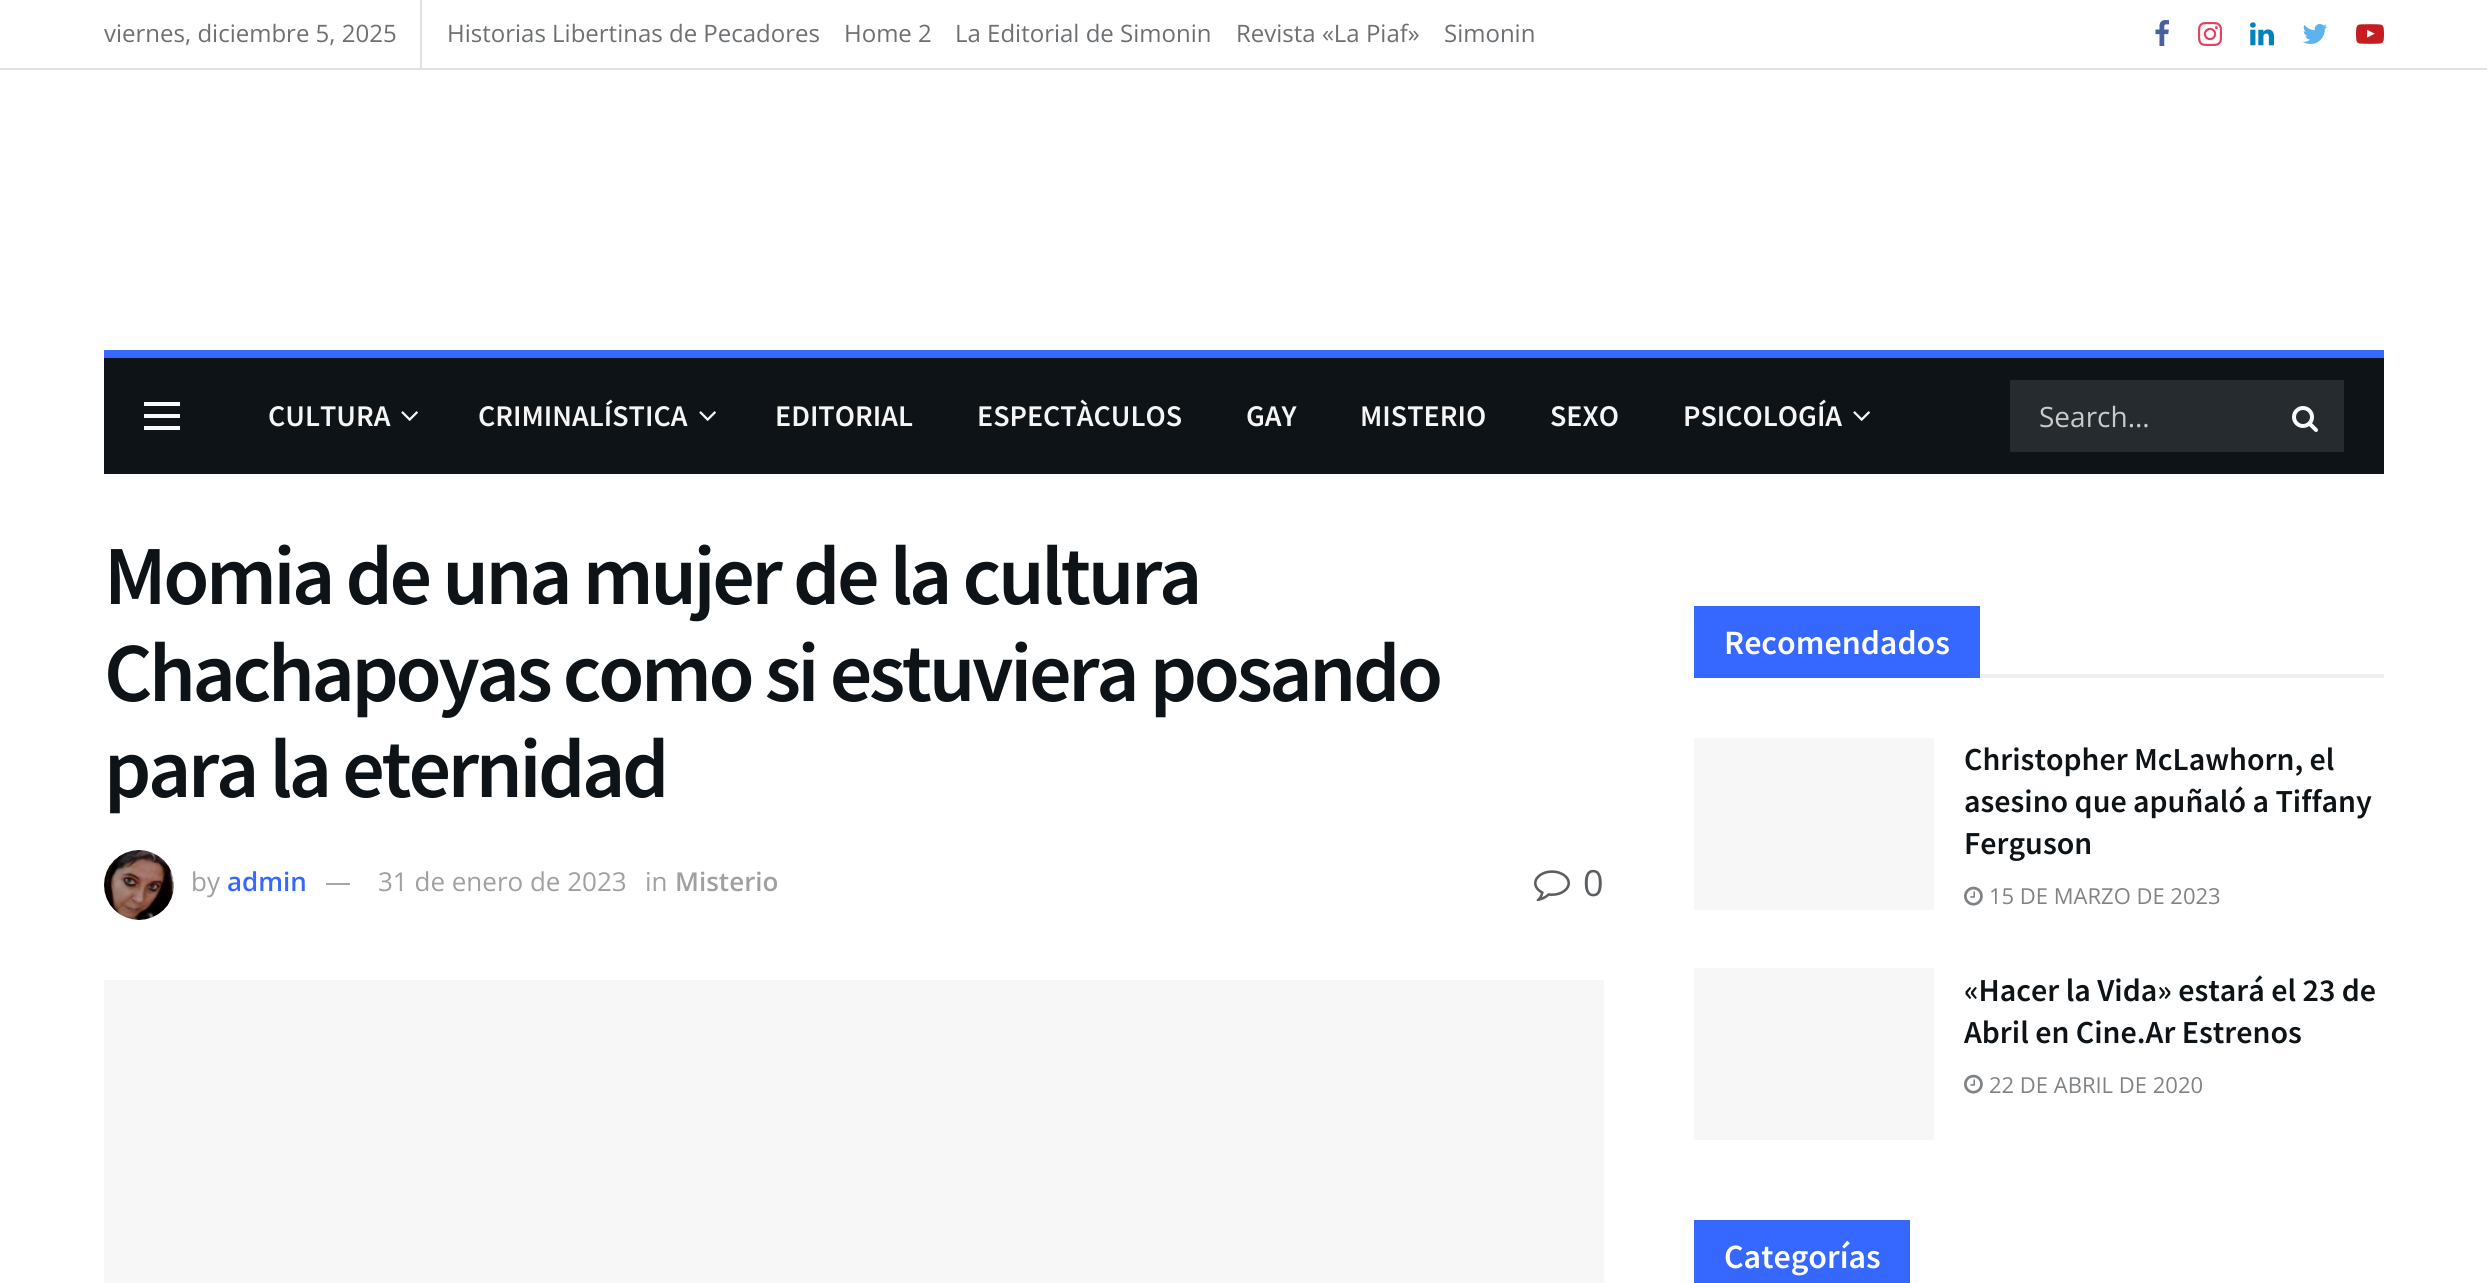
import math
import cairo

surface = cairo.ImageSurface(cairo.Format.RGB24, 2487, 1283)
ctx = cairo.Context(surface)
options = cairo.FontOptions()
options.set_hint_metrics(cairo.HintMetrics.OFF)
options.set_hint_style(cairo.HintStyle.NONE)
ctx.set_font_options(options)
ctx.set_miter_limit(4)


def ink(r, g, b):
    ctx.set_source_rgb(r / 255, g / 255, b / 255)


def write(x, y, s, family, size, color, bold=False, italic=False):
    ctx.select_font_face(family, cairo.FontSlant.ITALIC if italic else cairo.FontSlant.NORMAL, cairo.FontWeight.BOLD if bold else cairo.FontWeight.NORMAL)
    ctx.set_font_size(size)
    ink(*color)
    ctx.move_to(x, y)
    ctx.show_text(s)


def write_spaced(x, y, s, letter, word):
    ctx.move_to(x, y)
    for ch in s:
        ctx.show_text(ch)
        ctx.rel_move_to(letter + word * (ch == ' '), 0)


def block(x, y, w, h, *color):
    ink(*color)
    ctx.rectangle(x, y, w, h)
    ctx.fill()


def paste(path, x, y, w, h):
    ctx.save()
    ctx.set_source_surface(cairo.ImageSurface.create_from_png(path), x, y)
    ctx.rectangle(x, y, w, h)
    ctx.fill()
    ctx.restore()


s1 = dict(family="Open Sans", size=24, color=(109, 112, 115))
s2 = dict(family="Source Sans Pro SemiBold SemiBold", size=30, color=(245, 245, 245))
s3 = dict(family="Open Sans", size=28, color=(201, 202, 203))
s4 = dict(family="Open Sans", size=26, color=(160, 160, 160))
s5 = dict(family="Open Sans SemiBold", size=26, color=(54, 103, 255))
s6 = dict(family="Open Sans SemiBold", size=26, color=(160, 160, 160))
s7 = dict(family="Open Sans", size=36, color=(91, 95, 98))
s8 = dict(family="Source Sans Pro SemiBold SemiBold", size=34, color=(255, 255, 255))
s9 = dict(family="Source Sans Pro SemiBold SemiBold", size=32, color=(13, 19, 23))
s10 = dict(family="Open Sans", size=22, color=(128, 131, 134))

ink(255, 255, 255)
ctx.paint()
block(0, 68, 2487, 2, 224, 224, 224)
block(420, 0, 2, 68, 224, 224, 224)
write(104, 42, "viernes, diciembre 5, 2025", **s1)
write(447, 42, "Historias Libertinas de Pecadores", **s1)
write(844, 42, "Home 2", **s1)
write(955, 42, "La Editorial de Simonin", **s1)
write(1236, 42, "Revista «La Piaf»", **s1)
write(1444, 42, "Simonin", **s1)
paste("pic1.png", 2155, 20, 14, 26)
paste("pic2.png", 2198, 22, 24, 24)
paste("pic3.png", 2250, 22, 24, 24)
paste("pic4.png", 2302, 24, 26, 20)
paste("pic5.png", 2356, 24, 28, 20)
block(104, 358, 2280, 116, 13, 19, 23)
block(104, 350, 2280, 8, 54, 103, 255)
block(144, 402, 36, 4, 250, 250, 250)
block(144, 414, 36, 4, 250, 250, 250)
block(144, 426, 36, 4, 250, 250, 250)
write(268, 426, "CULTURA", **s2)
paste("pic6.png", 401, 411, 17, 10)
write(478, 426, "CRIMINALÍSTICA", **s2)
paste("pic6.png", 699, 411, 17, 10)
write(775, 426, "EDITORIAL", **s2)
write(977, 426, "ESPECTÀCULOS", **s2)
write(1246, 426, "GAY", **s2)
write(1360, 426, "MISTERIO", **s2)
write(1550, 426, "SEXO", **s2)
write(1683, 426, "PSICOLOGÍA", **s2)
paste("pic6.png", 1853, 411, 17, 10)
block(2010, 380, 334, 72, 37, 43, 46)
write(2039, 427, "Search...", **s3)
paste("pic7.png", 2292, 406, 26, 26)
ctx.select_font_face("Source Sans Pro SemiBold SemiBold")
ctx.set_font_size(84)
ink(13, 19, 23)
write_spaced(104, 604, "Momia de una mujer de la cultura", -3.35, 0)
write_spaced(104, 701, "Chachapoyas como si estuviera posando", -3.35, 0)
write_spaced(104, 797, "para la eternidad", -3.35, 0)
paste("pic8.png", 104, 850, 70, 70)
write(191, 891, "by", **s4)
write(227, 891, "admin", **s5)
write(325, 891, "—", **s4)
write(378, 891, "31 de enero de 2023", **s4)
write(645, 891, "in", **s4)
write(675, 891, "Misterio", **s6)
paste("pic9.png", 1534, 870, 36, 32)
write(1583, 896, "0", **s7)
block(104, 980, 1500, 303, 247, 247, 247)
block(1980, 674, 404, 4, 238, 238, 238)
block(1694, 606, 286, 72, 54, 103, 255)
write(1724, 654, "Recomendados", **s8)
block(1694, 738, 240, 172, 247, 247, 247)
write(1964, 770, "Christopher McLawhorn, el", **s9)
write(1964, 812, "asesino que apuñaló a Tiffany", **s9)
write(1964, 854, "Ferguson", **s9)
paste("pic10.png", 1964, 886, 19, 20)
write(1989, 904, "15 DE MARZO DE 2023", **s10)
block(1694, 968, 240, 172, 247, 247, 247)
write(1964, 1001, "«Hacer la Vida» estará el 23 de", **s9)
write(1964, 1043, "Abril en Cine.Ar Estrenos", **s9)
paste("pic10.png", 1964, 1074, 19, 20)
write(1989, 1093, "22 DE ABRIL DE 2020", **s10)
block(1694, 1220, 216, 63, 54, 103, 255)
write(1724, 1268, "Categorías", **s8)
surface.write_to_png("screenshot.png")
